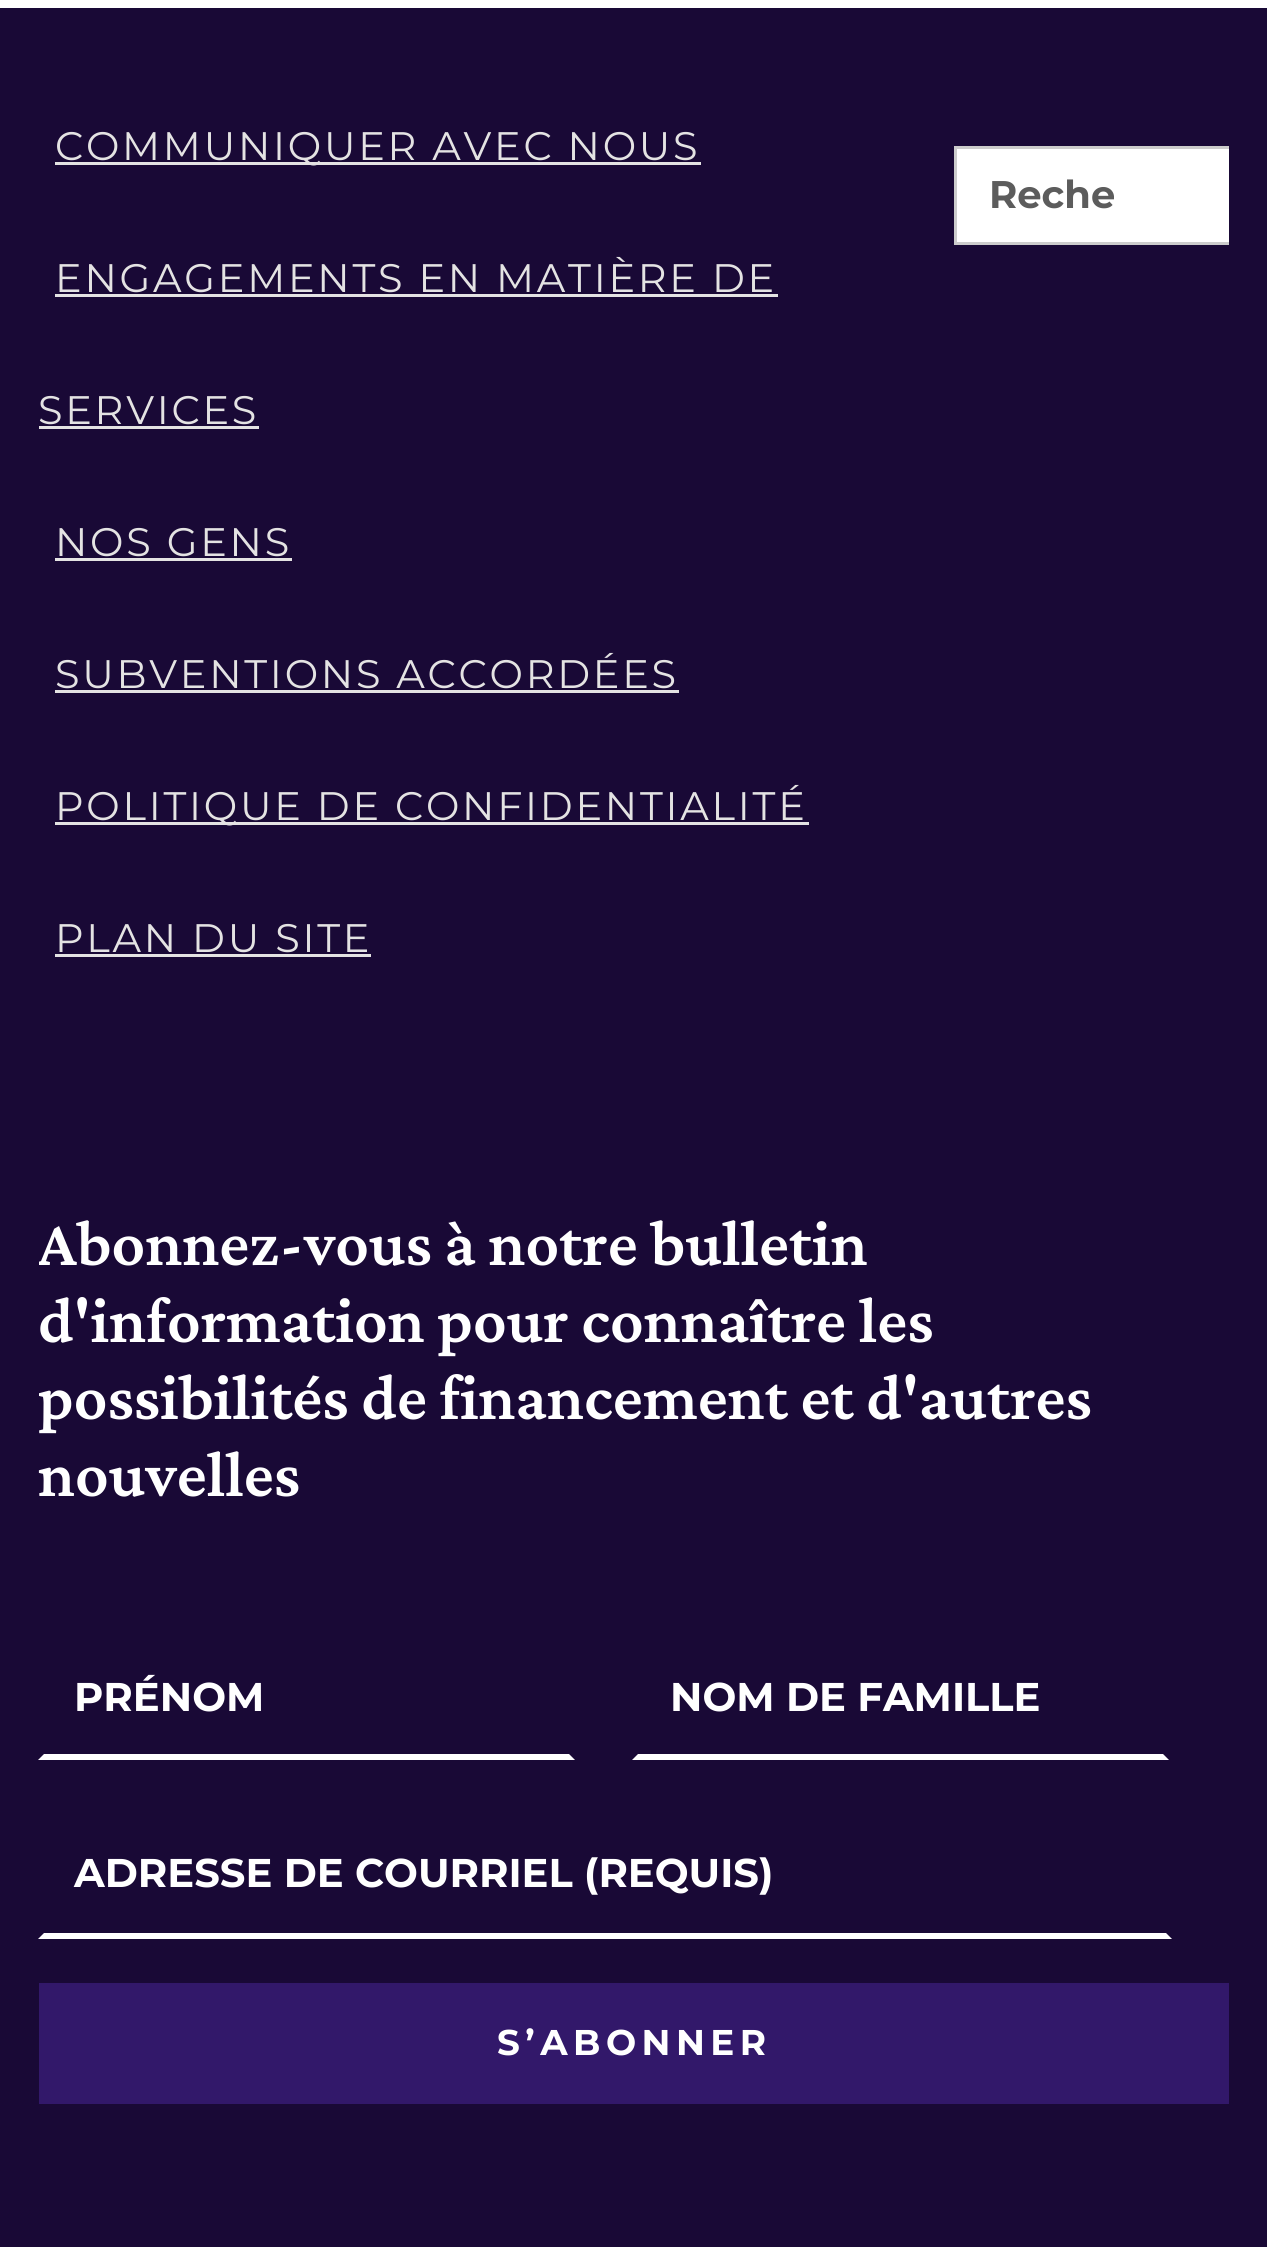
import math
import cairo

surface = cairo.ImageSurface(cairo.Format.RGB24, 1267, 2247)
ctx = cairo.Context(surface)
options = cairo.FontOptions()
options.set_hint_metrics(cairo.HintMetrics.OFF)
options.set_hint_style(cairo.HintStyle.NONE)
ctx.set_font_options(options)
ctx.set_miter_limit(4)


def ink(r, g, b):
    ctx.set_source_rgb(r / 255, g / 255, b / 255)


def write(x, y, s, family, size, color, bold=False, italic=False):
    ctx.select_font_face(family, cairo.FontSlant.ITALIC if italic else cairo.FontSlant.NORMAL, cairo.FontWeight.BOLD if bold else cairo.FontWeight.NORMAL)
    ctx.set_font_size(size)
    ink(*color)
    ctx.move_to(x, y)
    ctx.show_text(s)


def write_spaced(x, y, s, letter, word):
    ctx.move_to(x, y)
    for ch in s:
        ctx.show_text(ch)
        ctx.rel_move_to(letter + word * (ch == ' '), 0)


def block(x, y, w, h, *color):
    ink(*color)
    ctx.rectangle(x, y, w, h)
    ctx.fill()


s1 = dict(family="Montserrat", size=38.5, color=(92, 92, 92), bold=True)
s2 = dict(family="Crimson Pro SemiBold", size=66, color=(255, 255, 255))
s3 = dict(family="Montserrat", size=40.1, color=(255, 255, 255), bold=True)

ink(255, 255, 255)
ctx.paint()
block(0, 8, 1267, 2239, 25, 9, 54)
block(55, 162, 646, 3, 228, 227, 227)
ctx.select_font_face("Montserrat")
ctx.set_font_size(39.8)
write_spaced(55, 160, "COMMUNIQUER AVEC NOUS", 2.75, 0)
write_spaced(55, 292, "ENGAGEMENTS EN MATIÈRE DE", 2.75, 0)
block(55, 294, 723, 3, 228, 227, 227)
write_spaced(38, 424, "SERVICES", 2.75, 0)
block(39, 426, 220, 3, 228, 227, 227)
write_spaced(55, 556, "NOS GENS", 2.75, 0)
block(55, 558, 237, 3, 228, 227, 227)
write_spaced(55, 688, "SUBVENTIONS ACCORDÉES", 2.75, 0)
block(55, 690, 624, 3, 228, 227, 227)
block(55, 822, 754, 3, 228, 227, 227)
write_spaced(55, 820, "POLITIQUE DE CONFIDENTIALITÉ", 2.75, 0)
write_spaced(55, 952, "PLAN DU SITE", 2.75, 0)
block(55, 954, 316, 3, 228, 227, 227)
block(957, 149, 272, 93, 255, 255, 255)
block(954, 146, 275, 3, 204, 204, 204)
block(954, 242, 275, 3, 204, 204, 204)
block(954, 146, 3, 99, 204, 204, 204)
ctx.save()
ctx.rectangle(990, 171, 124, 49)
ctx.clip()
write(989, 208, "Reche", **s1)
ctx.restore()
ctx.save()
ctx.rectangle(39, 1075, 1190, 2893)
ctx.clip()
write(38, 1265, "Abonnez-vous à notre bulletin", **s2)
ctx.restore()
write(38, 1342, "d'information pour connaître les", **s2)
ctx.save()
ctx.rectangle(39, 1075, 1190, 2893)
ctx.clip()
write(38, 1419, "possibilités de financement et d'autres", **s2)
ctx.restore()
write(38, 1496, "nouvelles", **s2)
ctx.new_path()
ctx.move_to(575, 1760)
ctx.line_to(38, 1760)
ctx.line_to(44, 1754)
ctx.line_to(569, 1754)
ctx.close_path()
ctx.fill()
write(74, 1711, "PRÉNOM", **s3)
ctx.new_path()
ctx.move_to(1169, 1760)
ctx.line_to(632, 1760)
ctx.line_to(638, 1754)
ctx.line_to(1163, 1754)
ctx.close_path()
ctx.fill()
write(670, 1711, "NOM DE FAMILLE", **s3)
ctx.new_path()
ctx.move_to(1172, 1939)
ctx.line_to(38, 1939)
ctx.line_to(44, 1933)
ctx.line_to(1166, 1933)
ctx.close_path()
ctx.fill()
write(74, 1887, "ADRESSE DE COURRIEL (REQUIS)", **s3)
block(39, 1983, 1190, 121, 50, 24, 106)
ctx.set_font_size(35.75)
ink(255, 255, 255)
write_spaced(497, 2055, "S’ABONNER", 5.5, 0)
surface.write_to_png("screenshot.png")
